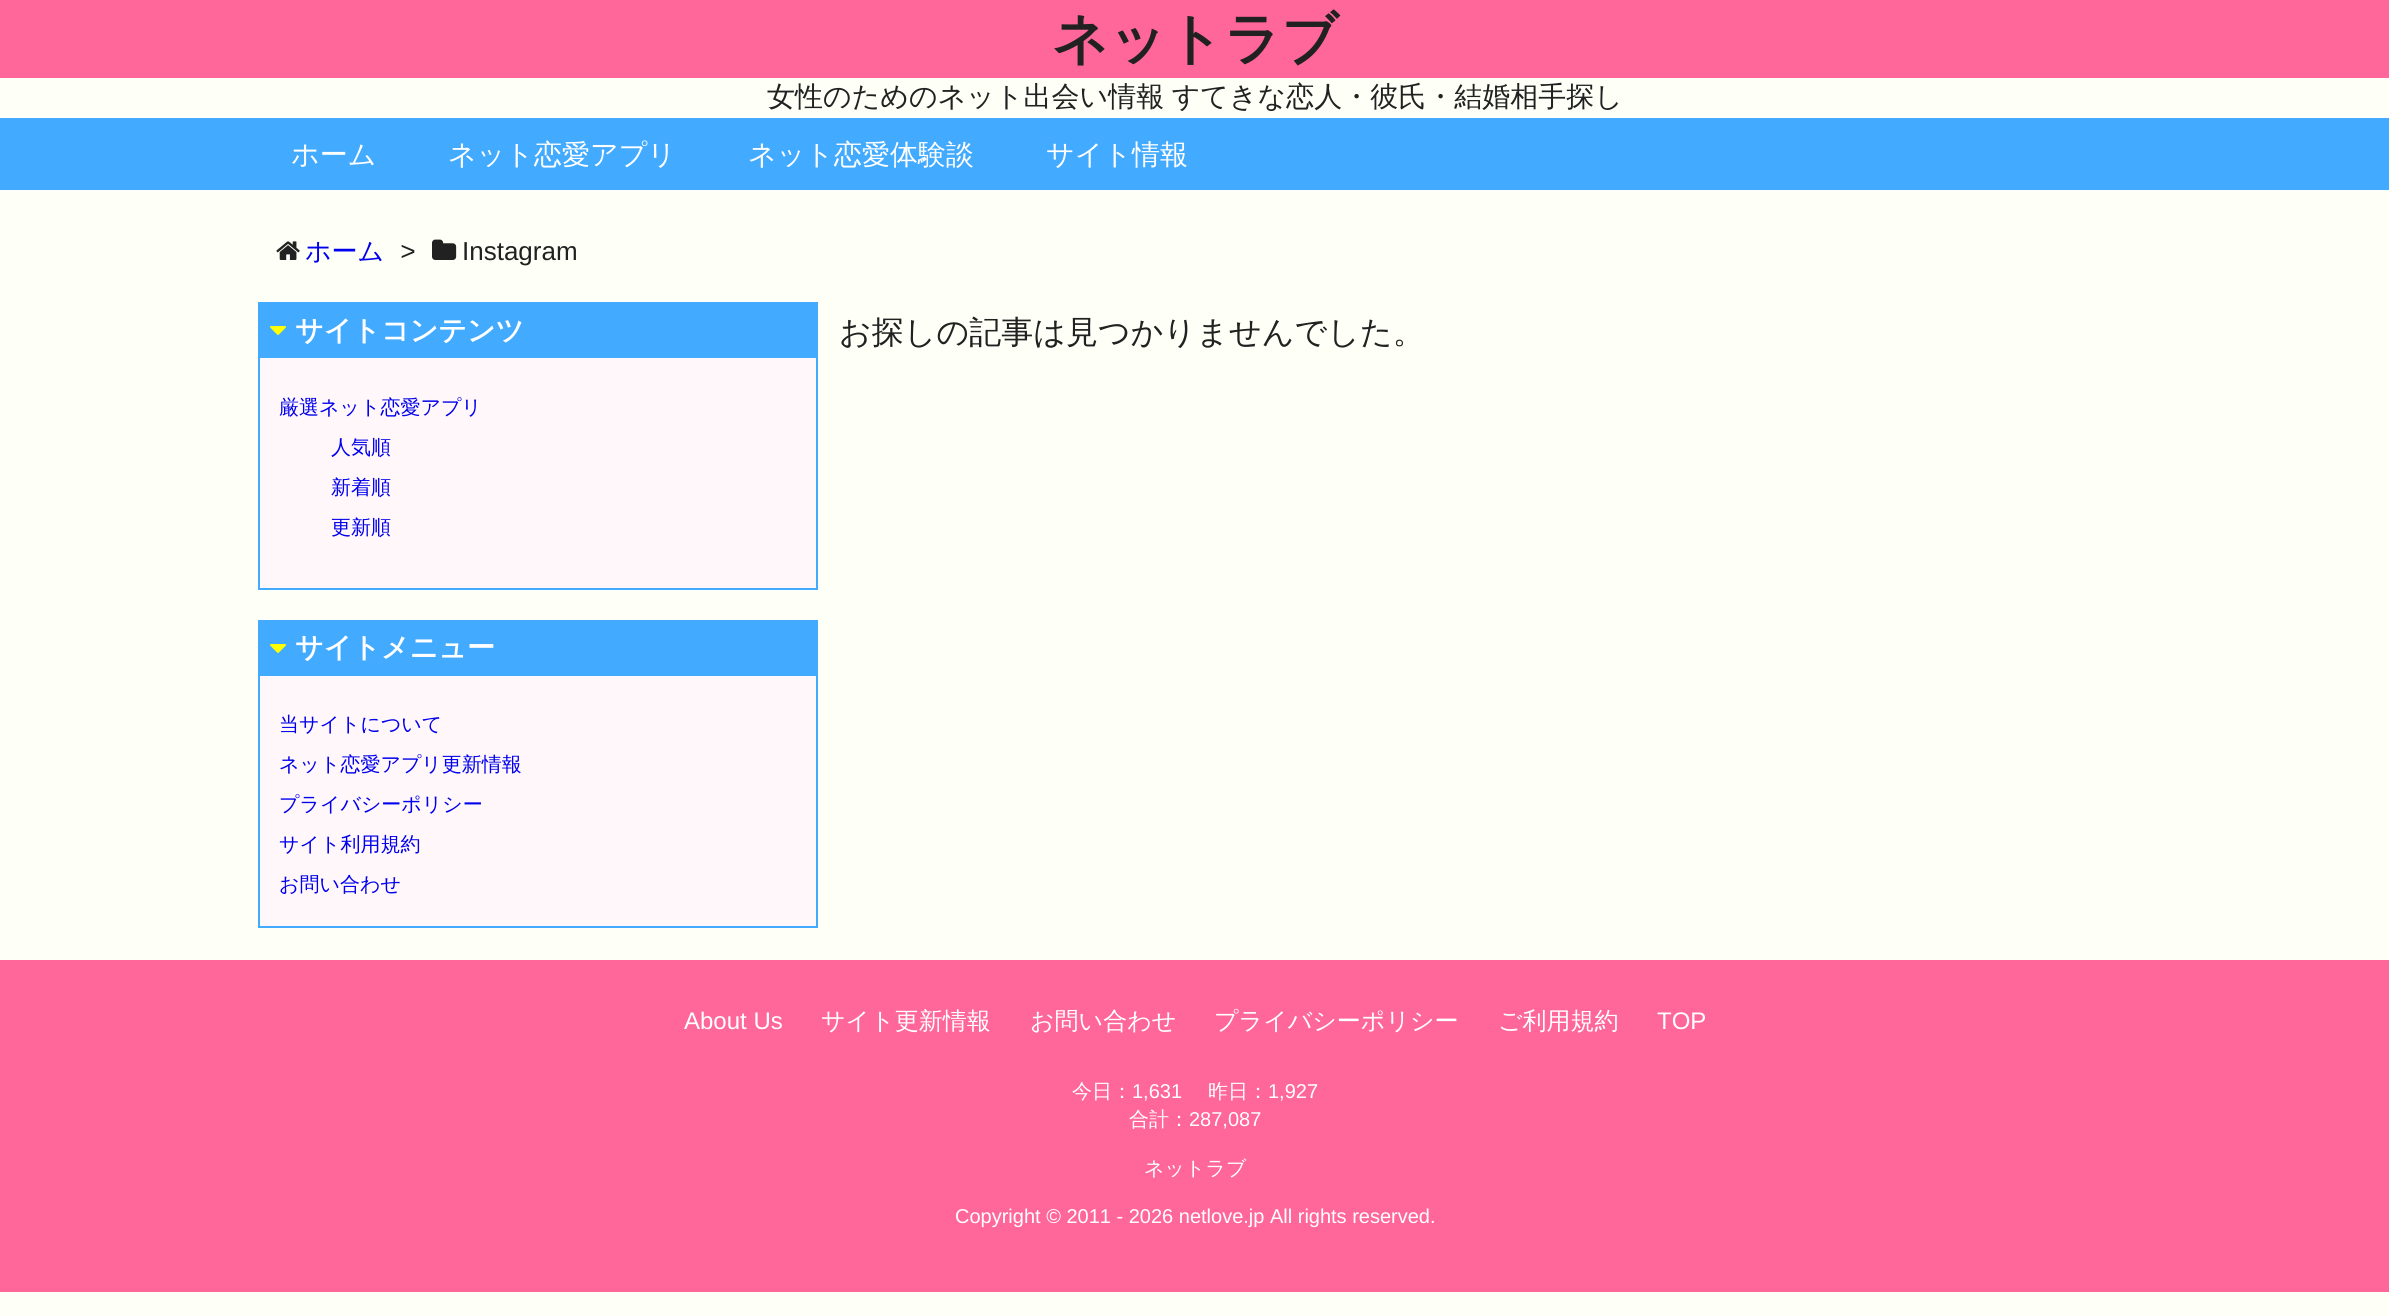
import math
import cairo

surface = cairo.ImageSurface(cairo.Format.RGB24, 2389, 1316)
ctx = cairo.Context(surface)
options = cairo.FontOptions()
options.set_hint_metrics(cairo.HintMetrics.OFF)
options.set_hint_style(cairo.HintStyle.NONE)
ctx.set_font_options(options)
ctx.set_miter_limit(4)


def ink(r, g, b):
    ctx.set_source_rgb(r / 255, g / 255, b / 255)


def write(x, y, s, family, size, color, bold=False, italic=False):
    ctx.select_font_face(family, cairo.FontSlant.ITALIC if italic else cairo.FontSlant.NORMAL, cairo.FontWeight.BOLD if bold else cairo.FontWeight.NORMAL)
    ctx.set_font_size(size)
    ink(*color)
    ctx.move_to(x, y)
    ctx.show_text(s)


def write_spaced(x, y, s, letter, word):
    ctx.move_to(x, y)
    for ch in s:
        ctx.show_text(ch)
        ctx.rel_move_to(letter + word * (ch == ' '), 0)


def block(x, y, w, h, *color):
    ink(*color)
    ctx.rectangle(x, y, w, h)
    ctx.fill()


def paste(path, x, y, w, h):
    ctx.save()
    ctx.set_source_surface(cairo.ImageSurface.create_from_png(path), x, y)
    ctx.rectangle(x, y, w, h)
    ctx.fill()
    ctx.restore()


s1 = dict(family="WenQuanYi Zen Hei", size=56, color=(33, 33, 33), bold=True)
s2 = dict(family="WenQuanYi Zen Hei Medium", size=28, color=(255, 255, 255))
s3 = dict(family="WenQuanYi Zen Hei Medium", size=26, color=(0, 0, 238))
s4 = dict(family="Liberation Sans", size=26, color=(33, 33, 33), italic=True)
s5 = dict(family="Liberation Sans", size=26, color=(33, 33, 33))
s6 = dict(family="WenQuanYi Zen Hei", size=28, color=(255, 255, 255), bold=True)
s7 = dict(family="WenQuanYi Zen Hei Medium", size=20, color=(0, 0, 238))
s8 = dict(family="WenQuanYi Zen Hei Medium", size=32, color=(33, 33, 33))
s9 = dict(family="Liberation Sans", size=24, color=(255, 255, 255))
s10 = dict(family="WenQuanYi Zen Hei Medium", size=24, color=(255, 255, 255))
s11 = dict(family="WenQuanYi Zen Hei Medium", size=20, color=(255, 255, 255))
s12 = dict(family="Liberation Sans", size=20, color=(255, 255, 255))

ink(254, 255, 247)
ctx.paint()
block(0, 0, 2389, 78, 255, 102, 153)
write(1052, 58, "ネットラブ", **s1)
ctx.select_font_face("WenQuanYi Zen Hei Medium")
ctx.set_font_size(28)
write_spaced(767, 106, "女性のためのネット出会い情報 すてきな恋人・彼氏・結婚相手探し", 0, -1)
block(0, 118, 2389, 72, 66, 170, 255)
write(291, 164, "ホーム", **s2)
write(448, 164, "ネット恋愛アプリ", **s2)
write(748, 164, "ネット恋愛体験談", **s2)
write(1046, 164, "サイト情報", **s2)
paste("pic1.png", 276, 241, 24, 19)
write(305, 260, "ホーム", **s3)
write(400, 260, ">", **s4)
paste("pic2.png", 432, 239, 25, 21)
write(462, 260, "Instagram", **s5)
block(260, 358, 556, 230, 255, 247, 249)
ctx.rectangle(259, 303, 558, 286)
ink(66, 170, 255)
ctx.stroke()
block(260, 304, 556, 54, 66, 170, 255)
paste("pic3.png", 270, 326, 16, 9)
write(295, 340, "サイトコンテンツ", **s6)
write(279, 414, "厳選ネット恋愛アプリ", **s7)
write(331, 454, "人気順", **s7)
write(331, 494, "新着順", **s7)
write(331, 534, "更新順", **s7)
block(260, 676, 556, 250, 255, 247, 249)
ctx.rectangle(259, 621, 558, 306)
ink(66, 170, 255)
ctx.stroke()
block(260, 622, 556, 54, 66, 170, 255)
paste("pic3.png", 270, 644, 16, 9)
write(295, 657, "サイトメニュー", **s6)
write(279, 731, "当サイトについて", **s7)
write(279, 771, "ネット恋愛アプリ更新情報", **s7)
write(279, 811, "プライバシーポリシー", **s7)
write(279, 851, "サイト利用規約", **s7)
write(279, 891, "お問い合わせ", **s7)
write(839, 343, "お探しの記事は見つかりませんでした。", **s8)
block(0, 960, 2389, 332, 255, 102, 153)
write(684, 1029, "About Us", **s9)
write(821, 1029, "サイト更新情報", **s10)
write(1030, 1029, "お問い合わせ", **s10)
write(1214, 1029, "プライバシーポリシー", **s10)
write(1498, 1029, "ご利用規約", **s10)
write(1657, 1029, "TOP", **s9)
write(1072, 1098, "今日：", **s11)
write(1132, 1098, "1,631", **s12)
write(1208, 1098, "昨日：", **s11)
write(1268, 1098, "1,927", **s12)
write(1129, 1126, "合計：", **s11)
write(1189, 1126, "287,087", **s12)
write(1144, 1175, "ネットラブ", **s11)
write(955, 1223, "Copyright © 2011 - 2026 netlove.jp All rights reserved.", **s12)
surface.write_to_png("screenshot.png")
